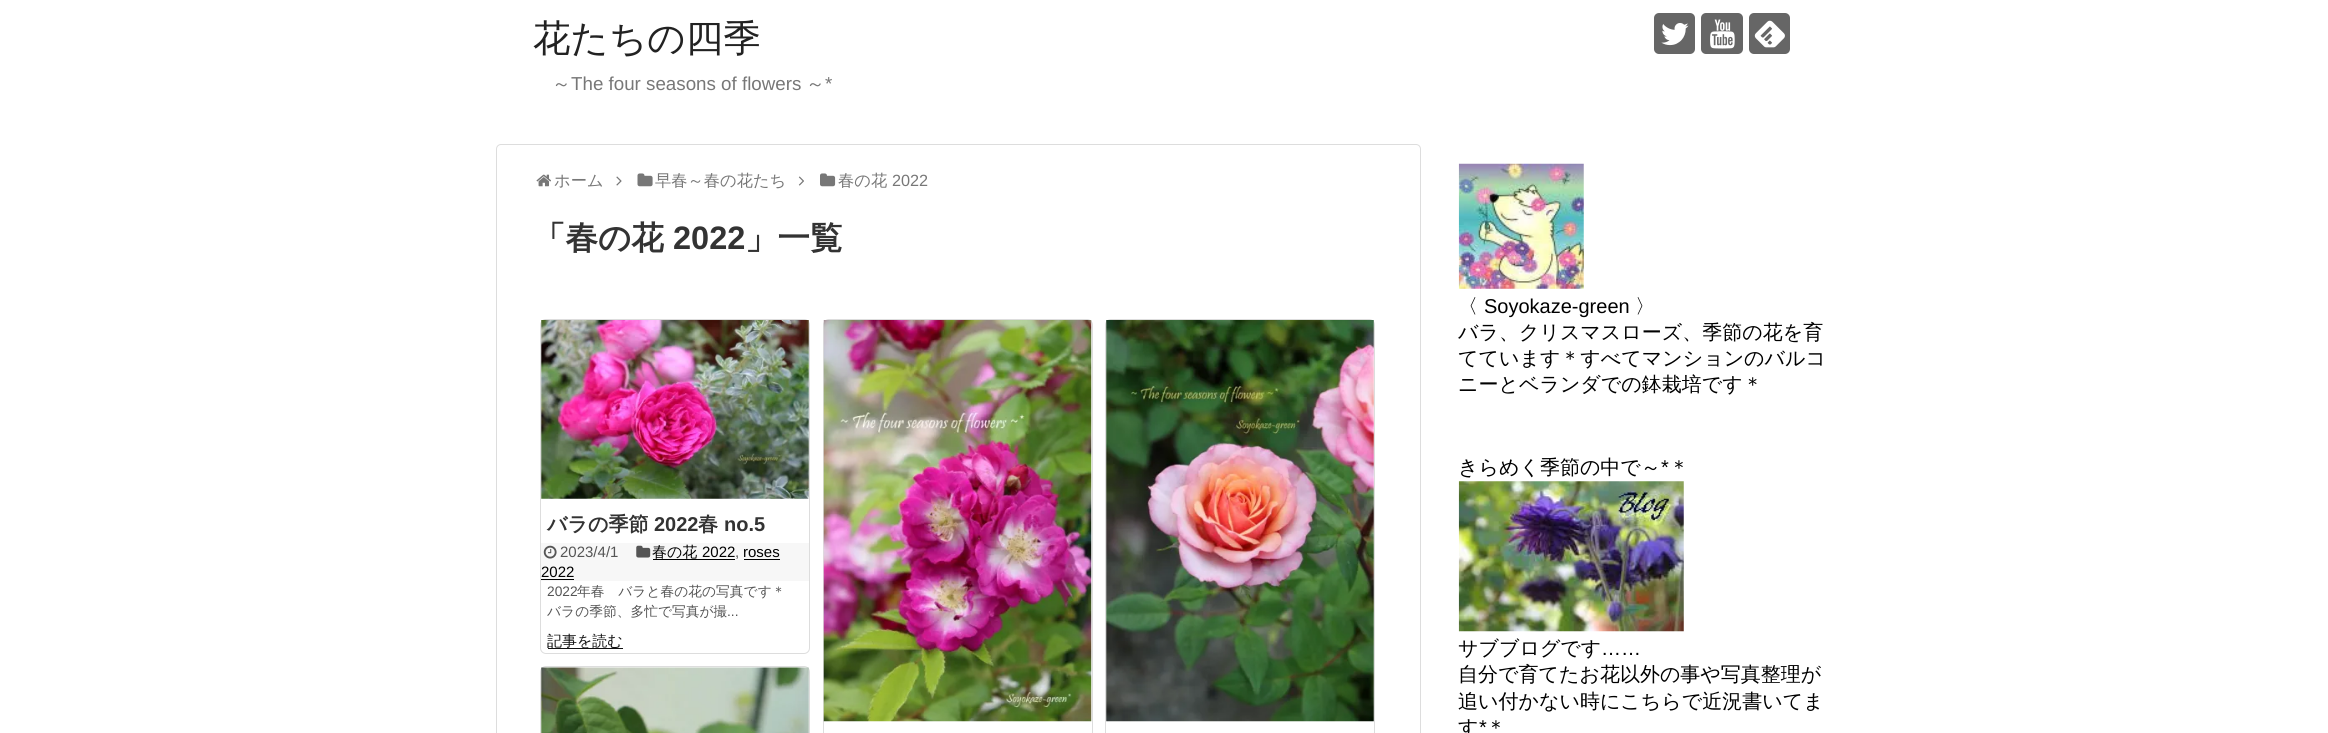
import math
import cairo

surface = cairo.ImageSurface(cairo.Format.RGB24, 2328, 733)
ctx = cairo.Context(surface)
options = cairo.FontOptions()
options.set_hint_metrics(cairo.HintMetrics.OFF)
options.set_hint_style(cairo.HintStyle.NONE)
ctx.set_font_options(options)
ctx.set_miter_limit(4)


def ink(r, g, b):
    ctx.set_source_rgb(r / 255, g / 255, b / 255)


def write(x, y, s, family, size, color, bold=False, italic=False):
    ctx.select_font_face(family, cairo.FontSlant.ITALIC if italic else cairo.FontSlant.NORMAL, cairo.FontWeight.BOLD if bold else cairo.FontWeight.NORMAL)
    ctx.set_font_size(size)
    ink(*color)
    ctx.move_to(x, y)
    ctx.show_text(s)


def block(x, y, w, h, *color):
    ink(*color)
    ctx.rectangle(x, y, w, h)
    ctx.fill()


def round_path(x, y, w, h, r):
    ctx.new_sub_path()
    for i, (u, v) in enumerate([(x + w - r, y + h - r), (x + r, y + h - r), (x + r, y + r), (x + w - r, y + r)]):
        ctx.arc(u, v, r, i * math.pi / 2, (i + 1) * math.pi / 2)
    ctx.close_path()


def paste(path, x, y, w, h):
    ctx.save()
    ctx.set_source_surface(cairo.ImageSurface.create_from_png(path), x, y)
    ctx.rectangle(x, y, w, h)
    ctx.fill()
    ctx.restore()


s1 = dict(family="WenQuanYi Zen Hei Medium", size=37.5, color=(34, 34, 34))
s2 = dict(family="Liberation Sans", size=18.75, color=(119, 119, 119))
s3 = dict(family="WenQuanYi Zen Hei Medium", size=18.75, color=(119, 119, 119))
s4 = dict(family="WenQuanYi Zen Hei Medium", size=16.25, color=(119, 119, 119))
s5 = dict(family="Liberation Sans", size=16.25, color=(119, 119, 119))
s6 = dict(family="WenQuanYi Zen Hei", size=32.5, color=(51, 51, 51), bold=True)
s7 = dict(family="Liberation Sans", size=32.5, color=(51, 51, 51), bold=True)
s8 = dict(family="WenQuanYi Zen Hei", size=20, color=(51, 51, 51), bold=True)
s9 = dict(family="Liberation Sans", size=20, color=(51, 51, 51), bold=True)
s10 = dict(family="WenQuanYi Zen Hei Medium", size=15, color=(0, 0, 0))
s11 = dict(family="Liberation Sans", size=15, color=(0, 0, 0))
s12 = dict(family="Liberation Sans", size=15, color=(85, 85, 85))
s13 = dict(family="Liberation Sans", size=13.75, color=(85, 85, 85))
s14 = dict(family="WenQuanYi Zen Hei Medium", size=13.75, color=(85, 85, 85))
s15 = dict(family="WenQuanYi Zen Hei Medium", size=15, color=(17, 17, 17))
s16 = dict(family="WenQuanYi Zen Hei Medium", size=20, color=(0, 0, 0))
s17 = dict(family="Liberation Sans", size=20, color=(0, 0, 0))

ink(255, 255, 255)
ctx.paint()
write(533, 51, "花たちの四季", **s1)
write(571, 90, "The four seasons of flowers", **s2)
write(825, 90, "*", **s2)
write(552, 90, "～", **s3)
write(806, 90, "～", **s3)
ink(102, 102, 102)
round_path(1654, 13, 41, 41, 5)
ctx.fill()
paste("pic1.png", 1661, 23, 28, 23)
round_path(1701, 13, 42, 41, 5)
ctx.fill()
paste("pic2.png", 1710, 19, 25, 30)
round_path(1749, 13, 41, 41, 5)
ctx.fill()
paste("pic3.png", 1754, 20, 31, 28)
round_path(496.5, 144.5, 924, 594, 4.5)
ink(221, 221, 221)
ctx.set_line_width(1)
ctx.stroke()
paste("pic4.png", 536, 174, 15, 13)
write(554, 186, "ホーム", **s4)
paste("pic5.png", 616, 176, 6, 10)
paste("pic6.png", 637, 173, 16, 14)
write(655, 186, "早春～春の花たち", **s4)
paste("pic7.png", 798, 176, 6, 10)
paste("pic8.png", 820, 173, 16, 14)
write(838, 186, "春の花", **s4)
write(892, 186, "2022", **s5)
write(533, 249, "「春の花", **s6)
write(673, 249, "2022", **s7)
write(745, 249, "」一覧", **s6)
round_path(540.5, 319.5, 269, 334, 5.5)
ink(221, 221, 221)
ctx.stroke()
paste("pic9.png", 541, 320, 268, 179)
write(547, 531, "バラの季節", **s8)
write(654, 531, "2022", **s9)
write(698, 531, "春", **s8)
write(724, 531, "no.5", **s9)
block(541, 543, 268, 38, 247, 247, 247)
paste("pic10.png", 636, 545, 15, 13)
write(652, 557, "春の花", **s10)
write(702, 557, "2022", **s11)
block(653, 559, 82, 1, 0, 0, 0)
write(735, 557, ",", **s12)
write(743, 557, "roses", **s11)
block(744, 559, 36, 1, 0, 0, 0)
write(541, 577, "2022", **s11)
block(541, 579, 33, 1, 0, 0, 0)
paste("pic11.png", 543, 545, 14, 14)
write(560, 557, "2023/4/1", **s12)
write(547, 596, "2022", **s13)
write(577, 596, "年春　バラと春の花の写真です＊", **s14)
write(547, 616, "バラの季節、多忙で写真が撮", **s14)
write(727, 616, "...", **s13)
block(548, 648, 75, 1, 17, 17, 17)
write(547, 646, "記事を読む", **s15)
round_path(823.5, 319.5, 269, 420, 5.5)
ink(221, 221, 221)
ctx.stroke()
paste("pic12.png", 823, 320, 269, 402)
round_path(1105.5, 319.5, 269, 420, 5.5)
ctx.stroke()
paste("pic13.png", 1106, 320, 268, 402)
round_path(540.5, 666.5, 269, 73, 5.5)
ctx.stroke()
paste("pic14.png", 541, 667, 268, 66)
paste("pic15.png", 1458, 163, 126, 126)
write(1458, 313, "〈", **s16)
write(1484, 313, "Soyokaze-green", **s17)
write(1635, 313, "〉", **s16)
write(1458, 339, "バラ、クリスマスローズ、季節の花を育", **s16)
write(1458, 365, "てています＊すべてマンションのバルコ", **s16)
write(1458, 391, "ニーとベランダでの鉢栽培です＊", **s16)
write(1458, 474, "きらめく季節の中で～", **s16)
write(1661, 474, "*", **s17)
write(1669, 474, "＊", **s16)
paste("pic16.png", 1458, 481, 226, 151)
write(1458, 655, "サブブログです", **s16)
write(1601, 655, "……", **s17)
write(1458, 681, "自分で育てたお花以外の事や写真整理が", **s16)
write(1458, 708, "追い付かない時にこちらで近況書いてま", **s16)
write(1458, 734, "す", **s16)
write(1479, 734, "*", **s17)
write(1486, 734, "＊", **s16)
surface.write_to_png("screenshot.png")
